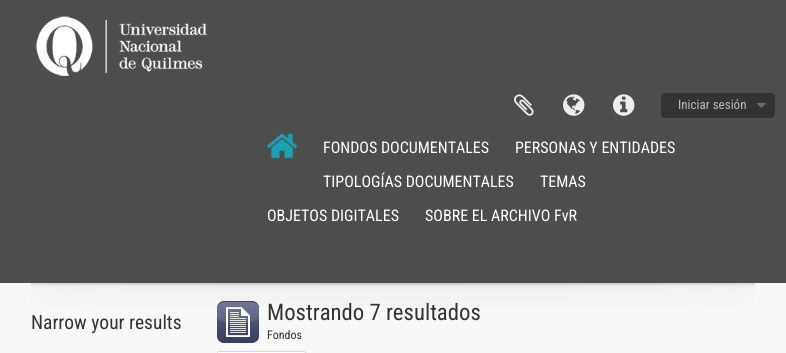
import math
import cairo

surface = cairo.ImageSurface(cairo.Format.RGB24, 786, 353)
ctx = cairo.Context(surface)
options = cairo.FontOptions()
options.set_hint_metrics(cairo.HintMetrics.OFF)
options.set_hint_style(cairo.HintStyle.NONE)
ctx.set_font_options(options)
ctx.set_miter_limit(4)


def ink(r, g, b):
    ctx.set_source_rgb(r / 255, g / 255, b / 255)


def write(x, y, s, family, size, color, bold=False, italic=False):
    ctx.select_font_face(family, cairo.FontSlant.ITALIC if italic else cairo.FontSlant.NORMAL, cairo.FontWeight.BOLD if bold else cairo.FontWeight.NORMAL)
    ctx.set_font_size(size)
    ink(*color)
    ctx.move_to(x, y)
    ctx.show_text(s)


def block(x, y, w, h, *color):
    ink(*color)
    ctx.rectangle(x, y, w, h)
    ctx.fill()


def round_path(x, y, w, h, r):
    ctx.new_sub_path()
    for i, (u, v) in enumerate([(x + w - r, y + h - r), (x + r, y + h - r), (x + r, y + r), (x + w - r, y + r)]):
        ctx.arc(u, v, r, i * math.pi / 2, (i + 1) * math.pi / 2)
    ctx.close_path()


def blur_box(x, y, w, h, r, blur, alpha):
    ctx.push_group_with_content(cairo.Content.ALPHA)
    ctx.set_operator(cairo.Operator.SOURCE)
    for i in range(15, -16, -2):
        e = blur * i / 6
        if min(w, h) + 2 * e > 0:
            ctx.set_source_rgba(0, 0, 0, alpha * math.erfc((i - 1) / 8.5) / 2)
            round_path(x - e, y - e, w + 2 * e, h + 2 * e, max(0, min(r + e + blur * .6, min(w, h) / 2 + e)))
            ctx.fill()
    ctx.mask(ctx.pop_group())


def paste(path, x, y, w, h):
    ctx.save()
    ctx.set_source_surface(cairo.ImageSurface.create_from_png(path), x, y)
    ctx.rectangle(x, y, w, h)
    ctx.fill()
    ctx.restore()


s1 = dict(family="Roboto Condensed", size=13, color=(187, 187, 187))
s2 = dict(family="Roboto Condensed", size=16, color=(255, 255, 255))
s3 = dict(family="Roboto Condensed", size=19.5, color=(51, 51, 51))
s4 = dict(family="Roboto Condensed", size=22.75, color=(51, 51, 51))
s5 = dict(family="Roboto Condensed", size=12, color=(51, 51, 51))

ink(248, 248, 248)
ctx.paint()
block(0, 0, 786, 283, 77, 77, 77)
paste("pic1.png", 35, 16, 173, 60)
paste("pic2.png", 514, 94, 20, 22)
paste("pic3.png", 563, 94, 22, 22)
paste("pic4.png", 613, 94, 22, 22)
ink(51, 51, 51)
round_path(661, 93, 114, 25, 4)
ctx.fill()
paste("pic5.png", 757, 103, 9, 5)
write(678, 109, "Iniciar sesión", **s1)
paste("pic6.png", 267, 133, 30, 26)
write(323, 153, "FONDOS DOCUMENTALES", **s2)
write(515, 153, "PERSONAS Y ENTIDADES", **s2)
write(323, 187, "TIPOLOGÍAS DOCUMENTALES", **s2)
write(540, 187, "TEMAS", **s2)
write(267, 221, "OBJETOS DIGITALES", **s2)
write(425, 221, "SOBRE EL ARCHIVO FvR", **s2)
paste("pic7.png", 31, 283, 724, 23)
write(31, 329, "Narrow your results", **s3)
paste("pic8.png", 217, 301, 42, 42)
write(267, 320, "Mostrando 7 resultados", **s4)
write(267, 339, "Fondos", **s5)
ink(0, 0, 0)
blur_box(218, 352, 89, 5, 2, 0.5, 0.1)
ink(255, 255, 255)
round_path(217.5, 351.5, 88, 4, 1.5)
ctx.fill_preserve()
ink(217, 217, 217)
ctx.set_line_width(1)
ctx.stroke()
surface.write_to_png("screenshot.png")
